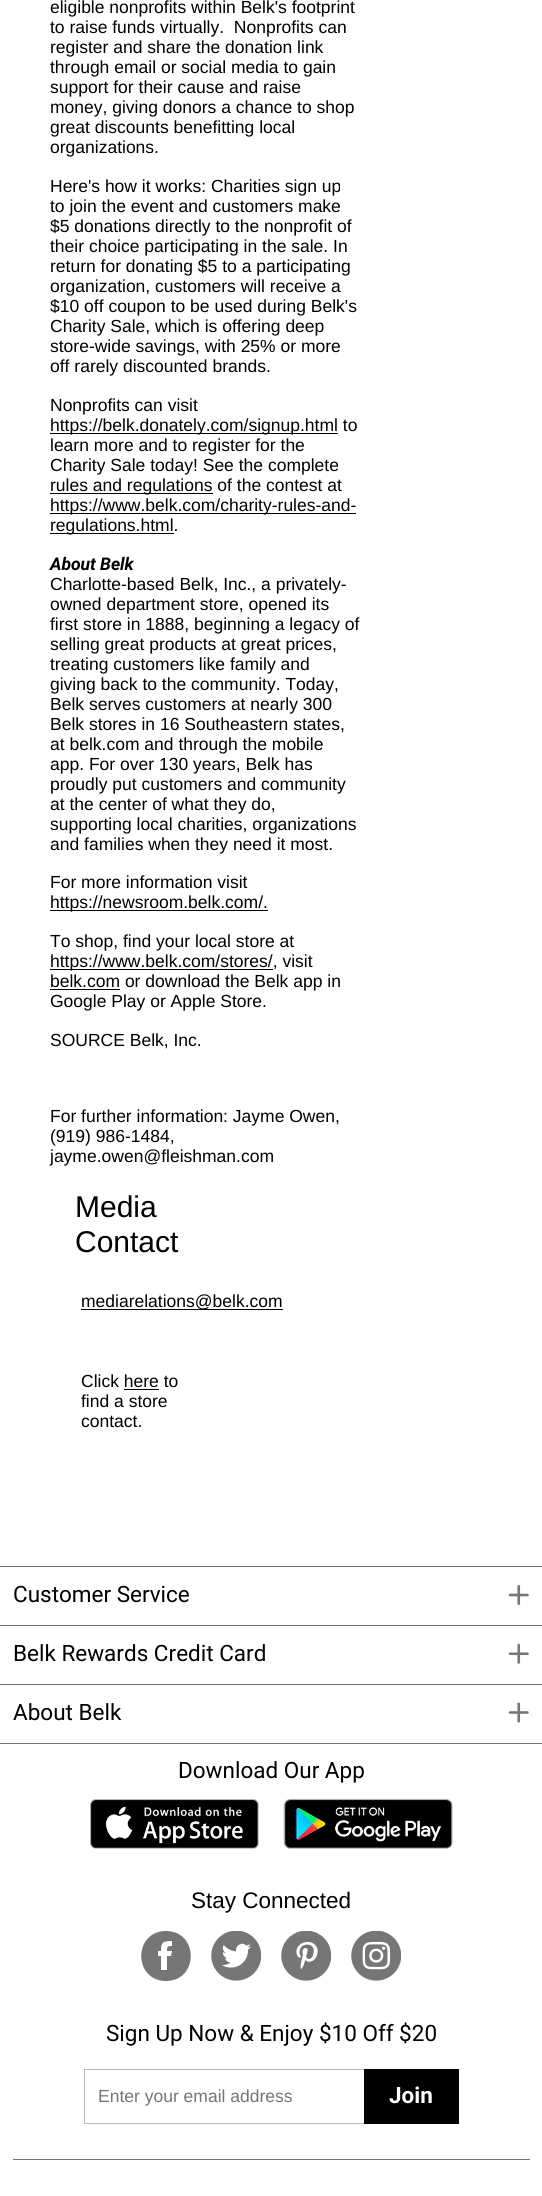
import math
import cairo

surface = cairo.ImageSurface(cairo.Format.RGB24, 542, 2196)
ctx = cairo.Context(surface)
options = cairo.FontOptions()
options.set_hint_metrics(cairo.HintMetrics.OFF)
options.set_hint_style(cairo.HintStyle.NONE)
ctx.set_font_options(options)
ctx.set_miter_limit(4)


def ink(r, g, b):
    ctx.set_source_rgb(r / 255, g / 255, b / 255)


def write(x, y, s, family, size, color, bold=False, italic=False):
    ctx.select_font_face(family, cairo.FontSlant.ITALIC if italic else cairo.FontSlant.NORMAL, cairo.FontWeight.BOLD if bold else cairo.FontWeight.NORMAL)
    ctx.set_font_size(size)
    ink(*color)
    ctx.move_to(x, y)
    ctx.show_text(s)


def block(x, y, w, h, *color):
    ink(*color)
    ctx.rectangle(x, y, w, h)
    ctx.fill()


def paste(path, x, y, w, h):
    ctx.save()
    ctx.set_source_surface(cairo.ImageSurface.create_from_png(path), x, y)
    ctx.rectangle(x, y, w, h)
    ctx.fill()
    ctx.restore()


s1 = dict(family="Liberation Sans", size=17.5, color=(0, 0, 0))
s2 = dict(family="Roboto", size=17.5, color=(0, 0, 0), bold=True, italic=True)
s3 = dict(family="Liberation Sans", size=30, color=(0, 0, 0))
s4 = dict(family="Roboto", size=22.5, color=(0, 0, 0))
s5 = dict(family="Liberation Sans", size=22.5, color=(0, 0, 0))
s6 = dict(family="Liberation Sans", size=17.5, color=(117, 117, 117))
s7 = dict(family="Roboto", size=22.5, color=(255, 255, 255), bold=True)

ink(255, 255, 255)
ctx.paint()
write(50, 13, "eligible nonprofits within Belk's footprint", **s1)
write(50, 33, "to raise funds virtually.  Nonprofits can", **s1)
write(50, 53, "register and share the donation link", **s1)
write(50, 73, "through email or social media to gain", **s1)
write(50, 93, "support for their cause and raise", **s1)
write(50, 113, "money, giving donors a chance to shop", **s1)
write(50, 133, "great discounts benefitting local", **s1)
write(50, 153, "organizations.", **s1)
write(50, 192, "Here's how it works: Charities sign up", **s1)
write(50, 212, "to join the event and customers make", **s1)
write(50, 232, "$5 donations directly to the nonprofit of", **s1)
write(50, 252, "their choice participating in the sale. In", **s1)
write(50, 272, "return for donating $5 to a participating", **s1)
write(50, 292, "organization, customers will receive a", **s1)
write(50, 312, "$10 off coupon to be used during Belk's", **s1)
write(50, 332, "Charity Sale, which is offering deep", **s1)
write(50, 352, "store-wide savings, with 25% or more", **s1)
write(50, 372, "off rarely discounted brands.", **s1)
write(50, 411, "Nonprofits can visit", **s1)
block(50, 433, 288, 1, 0, 0, 0)
write(50, 431, "https://belk.donately.com/signup.html to", **s1)
write(50, 451, "learn more and to register for the", **s1)
write(50, 471, "Charity Sale today! See the complete", **s1)
block(50, 493, 163, 1, 0, 0, 0)
write(50, 491, "rules and regulations of the contest at", **s1)
block(50, 513, 306, 1, 0, 0, 0)
write(50, 511, "https://www.belk.com/charity-rules-and-", **s1)
block(50, 533, 124, 1, 0, 0, 0)
write(50, 531, "regulations.html.", **s1)
write(50, 570, "About Belk", **s2)
write(50, 590, "Charlotte-based Belk, Inc., a privately-", **s1)
write(50, 610, "owned department store, opened its", **s1)
write(50, 630, "first store in 1888, beginning a legacy of", **s1)
write(50, 650, "selling great products at great prices,", **s1)
write(50, 670, "treating customers like family and", **s1)
write(50, 690, "giving back to the community. Today,", **s1)
write(50, 710, "Belk serves customers at nearly 300", **s1)
write(50, 730, "Belk stores in 16 Southeastern states,", **s1)
write(50, 750, "at belk.com and through the mobile", **s1)
write(50, 770, "app. For over 130 years, Belk has", **s1)
write(50, 790, "proudly put customers and community", **s1)
write(50, 810, "at the center of what they do,", **s1)
write(50, 830, "supporting local charities, organizations", **s1)
write(50, 850, "and families when they need it most.", **s1)
write(50, 888, "For more information visit", **s1)
block(50, 910, 218, 1, 0, 0, 0)
write(50, 908, "https://newsroom.belk.com/.", **s1)
write(50, 947, "To shop, find your local store at", **s1)
block(50, 969, 223, 1, 0, 0, 0)
write(50, 967, "https://www.belk.com/stores/, visit", **s1)
block(50, 989, 70, 1, 0, 0, 0)
write(50, 987, "belk.com or download the Belk app in", **s1)
write(50, 1007, "Google Play or Apple Store.", **s1)
write(50, 1046, "SOURCE Belk, Inc.", **s1)
write(50, 1122, "For further information: Jayme Owen,", **s1)
write(50, 1142, "(919) 986-1484,", **s1)
write(50, 1162, "jayme.owen@fleishman.com", **s1)
write(75, 1217, "Media", **s3)
write(75, 1252, "Contact", **s3)
block(81, 1309, 202, 1, 0, 0, 0)
write(81, 1307, "mediarelations@belk.com", **s1)
write(81, 1387, "Click here to", **s1)
block(124, 1389, 35, 1, 0, 0, 0)
write(81, 1407, "find a store", **s1)
write(81, 1427, "contact.", **s1)
block(0, 1566, 542, 1, 118, 118, 118)
write(13, 1602, "Customer Service", **s4)
paste("pic1.png", 508, 1585, 21, 20)
block(0, 1625, 542, 1, 118, 118, 118)
write(13, 1661, "Belk Rewards Credit Card", **s4)
paste("pic2.png", 508, 1643, 21, 21)
block(0, 1684, 542, 1, 118, 118, 118)
write(13, 1720, "About Belk", **s4)
paste("pic3.png", 508, 1702, 21, 21)
block(0, 1743, 542, 1, 118, 118, 118)
write(178, 1778, "Download Our App", **s4)
paste("pic4.png", 90, 1798, 169, 51)
paste("pic5.png", 283, 1798, 170, 51)
write(191, 1908, "Stay Connected", **s5)
ink(118, 118, 118)
ctx.new_path()
ctx.move_to(166, 1931)
ctx.curve_to(133, 1931, 133, 1981, 166, 1981)
ctx.curve_to(199, 1981, 199, 1931, 166, 1931)
ctx.close_path()
ctx.move_to(171, 1956)
ctx.line_to(167, 1956)
ctx.line_to(167, 1970)
ctx.line_to(161, 1970)
ctx.line_to(161, 1956)
ctx.line_to(158, 1956)
ctx.line_to(158, 1951)
ctx.line_to(161, 1951)
ctx.curve_to(161, 1942, 163, 1941, 172, 1941)
ctx.line_to(172, 1946)
ctx.curve_to(167, 1946, 167, 1947, 167, 1951)
ctx.line_to(172, 1951)
ctx.close_path()
ctx.fill()
paste("pic6.png", 211, 1931, 50, 50)
paste("pic7.png", 281, 1931, 50, 50)
paste("pic8.png", 351, 1931, 50, 50)
write(106, 2041, "Sign Up Now & Enjoy $10 Off $20", **s4)
block(84, 2069, 280, 1, 188, 185, 180)
block(84, 2123, 280, 1, 188, 185, 180)
block(84, 2069, 1, 55, 188, 185, 180)
write(98, 2102, "Enter your email address", **s6)
block(364, 2069, 95, 55, 0, 0, 0)
write(389, 2103, "Join", **s7)
block(13, 2159, 517, 1, 118, 118, 118)
surface.write_to_png("screenshot.png")
